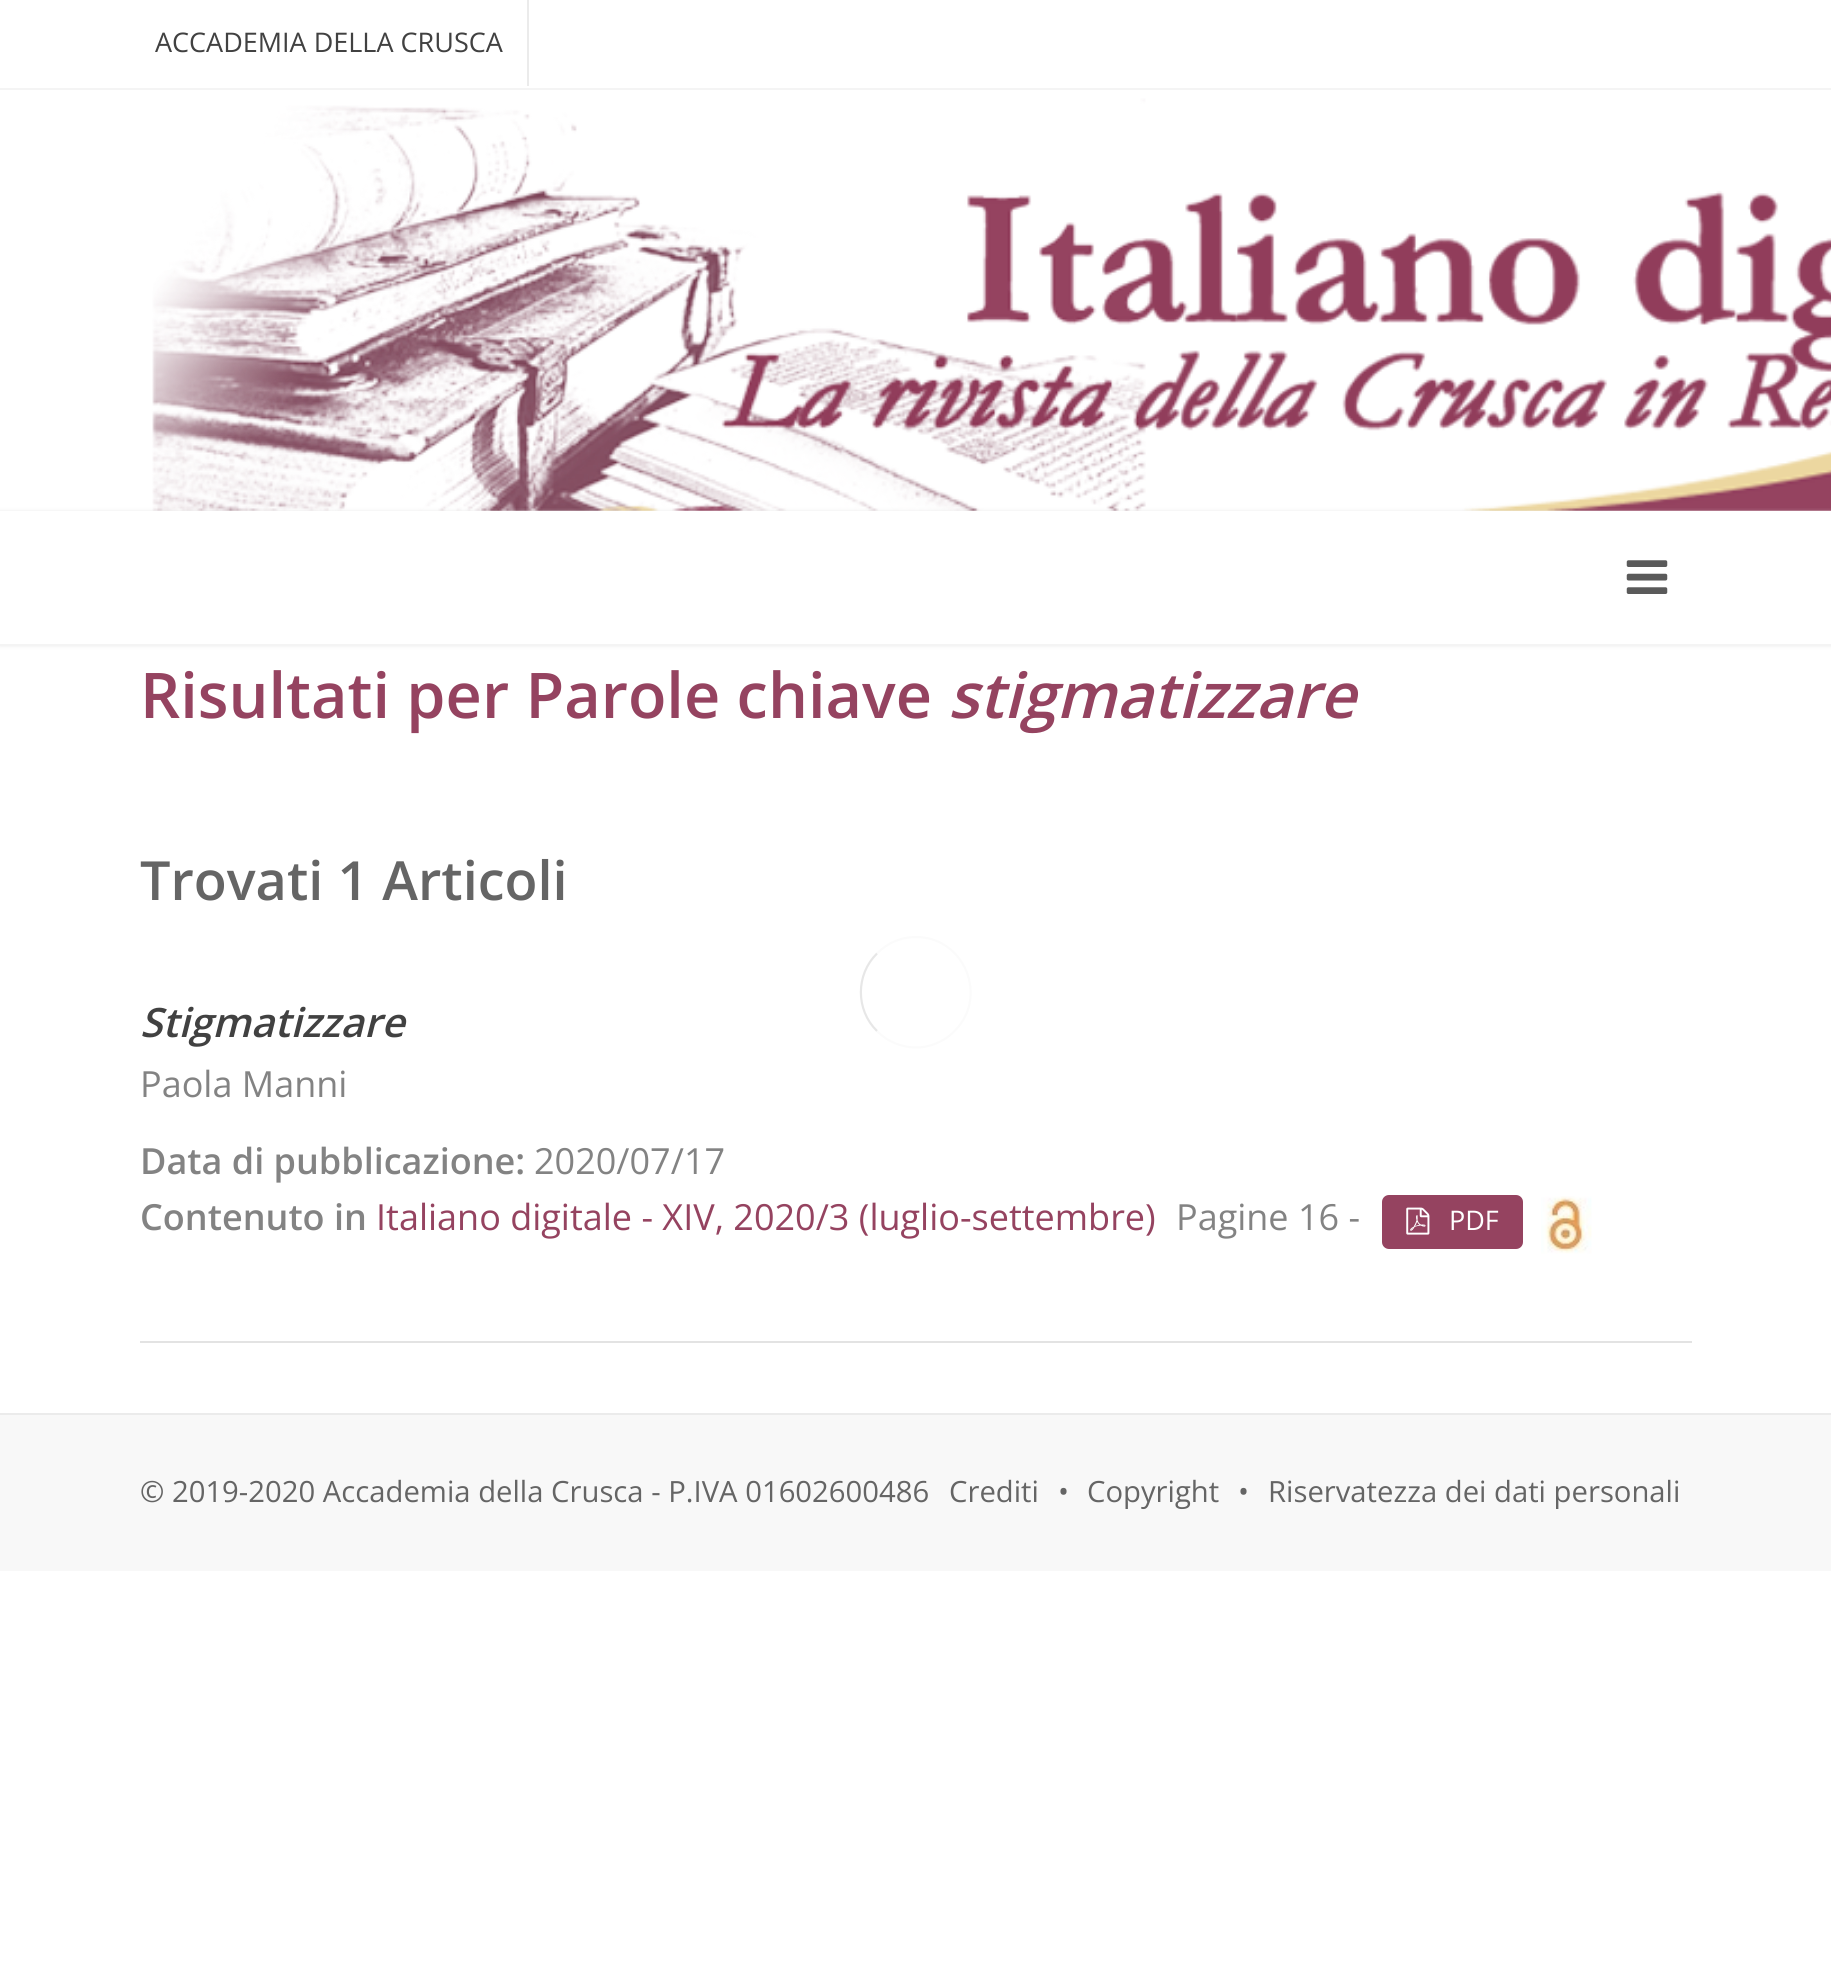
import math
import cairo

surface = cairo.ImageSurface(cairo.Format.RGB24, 1831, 1984)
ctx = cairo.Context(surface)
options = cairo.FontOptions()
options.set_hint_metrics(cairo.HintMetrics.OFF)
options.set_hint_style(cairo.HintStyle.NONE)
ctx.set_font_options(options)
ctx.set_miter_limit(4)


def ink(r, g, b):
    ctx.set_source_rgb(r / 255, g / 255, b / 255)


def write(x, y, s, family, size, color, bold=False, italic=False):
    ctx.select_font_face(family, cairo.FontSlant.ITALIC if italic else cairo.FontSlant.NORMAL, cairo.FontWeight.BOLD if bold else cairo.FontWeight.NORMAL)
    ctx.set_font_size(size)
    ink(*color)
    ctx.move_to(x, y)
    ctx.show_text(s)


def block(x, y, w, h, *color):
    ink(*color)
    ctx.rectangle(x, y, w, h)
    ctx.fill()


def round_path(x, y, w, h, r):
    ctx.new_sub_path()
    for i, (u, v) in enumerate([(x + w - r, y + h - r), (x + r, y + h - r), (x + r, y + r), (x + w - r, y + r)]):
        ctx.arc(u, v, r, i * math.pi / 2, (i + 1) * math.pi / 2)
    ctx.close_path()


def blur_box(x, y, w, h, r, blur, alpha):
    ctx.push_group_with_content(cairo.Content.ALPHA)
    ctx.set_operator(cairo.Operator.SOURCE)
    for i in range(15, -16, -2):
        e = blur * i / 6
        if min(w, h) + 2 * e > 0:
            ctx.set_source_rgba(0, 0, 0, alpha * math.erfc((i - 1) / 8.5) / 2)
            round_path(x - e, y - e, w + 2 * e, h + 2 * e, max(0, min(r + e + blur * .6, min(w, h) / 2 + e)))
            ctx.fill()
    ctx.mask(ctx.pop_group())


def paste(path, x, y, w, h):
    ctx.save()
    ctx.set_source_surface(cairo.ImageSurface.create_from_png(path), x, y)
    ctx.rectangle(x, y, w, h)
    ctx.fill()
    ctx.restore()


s1 = dict(family="Open Sans", size=27, color=(65, 65, 65))
s2 = dict(family="Open Sans SemiBold", size=63, color=(149, 67, 96))
s3 = dict(family="Open Sans SemiBold", size=63, color=(149, 67, 96), italic=True)
s4 = dict(family="Open Sans SemiBold", size=54, color=(101, 101, 101))
s5 = dict(family="Open Sans SemiBold", size=40.5, color=(65, 65, 65), italic=True)
s6 = dict(family="Open Sans", size=36, color=(131, 131, 131))
s7 = dict(family="Open Sans SemiBold", size=36, color=(131, 131, 131))
s8 = dict(family="Open Sans", size=36, color=(149, 67, 96))
s9 = dict(family="Open Sans", size=27, color=(255, 255, 255))
s10 = dict(family="Open Sans", size=29.25, color=(101, 101, 101))

ink(255, 255, 255)
ctx.paint()
block(0, 88, 1831, 2, 244, 244, 244)
block(527, 0, 2, 86, 235, 235, 235)
write(155, 52, "ACCADEMIA DELLA CRUSCA", **s1)
paste("pic1.png", 152, 98, 1679, 413)
ink(48, 48, 48)
blur_box(0, 511, 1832, 135, 0, 2, 0.1)
block(0, 511, 1831, 133, 255, 255, 255)
block(0, 644, 1831, 2, 244, 244, 244)
paste("pic2.png", 1626, 560, 42, 34)
block(0, 1413, 1831, 2, 235, 235, 235)
write(140, 718, "Risultati per Parole chiave", **s2)
write(948, 718, "stigmatizzare", **s3)
write(140, 900, "Trovati 1 Articoli", **s4)
write(140, 1037, "Stigmatizzare", **s5)
write(140, 1097, "Paola Manni", **s6)
write(140, 1174, "Data di pubblicazione:", **s7)
write(534, 1174, "2020/07/17", **s6)
write(140, 1230, "Contenuto in", **s7)
write(376, 1230, "Italiano digitale - XIV, 2020/3 (luglio-settembre)", **s8)
write(1176, 1230, "Pagine 16 -", **s6)
ink(149, 67, 96)
round_path(1383, 1196, 139, 52, 6)
ctx.fill_preserve()
ctx.stroke()
paste("pic3.png", 1406, 1207, 24, 28)
write(1449, 1230, "PDF", **s9)
paste("pic4.png", 1541, 1196, 51, 58)
block(140, 1341, 1552, 2, 227, 227, 227)
block(0, 1415, 1831, 156, 248, 248, 248)
write(140, 1502, "© 2019-2020 Accademia della Crusca - P.IVA 01602600486", **s10)
write(949, 1502, "Crediti", **s10)
write(1058, 1502, "•", **s10)
write(1087, 1502, "Copyright", **s10)
write(1238, 1502, "•", **s10)
write(1268, 1502, "Riservatezza dei dati personali", **s10)
ctx.new_path()
ctx.move_to(877, 953.5)
ctx.curve_to(887, 943, 901, 937, 916, 937)
ctx.curve_to(964.5, 937, 989, 997, 954.5, 1031)
ctx.curve_to(947, 1039, 937, 1044, 926.5, 1046.5)
ctx.curve_to(908.5, 1050, 889.5, 1044, 877, 1031)
ink(251, 251, 251)
ctx.set_line_width(2.2)
ctx.stroke()
ctx.new_path()
ctx.move_to(877, 1031)
ctx.curve_to(855.5, 1010, 855.5, 974.5, 877, 953.5)
ink(231, 231, 231)
ctx.stroke()
surface.write_to_png("screenshot.png")
